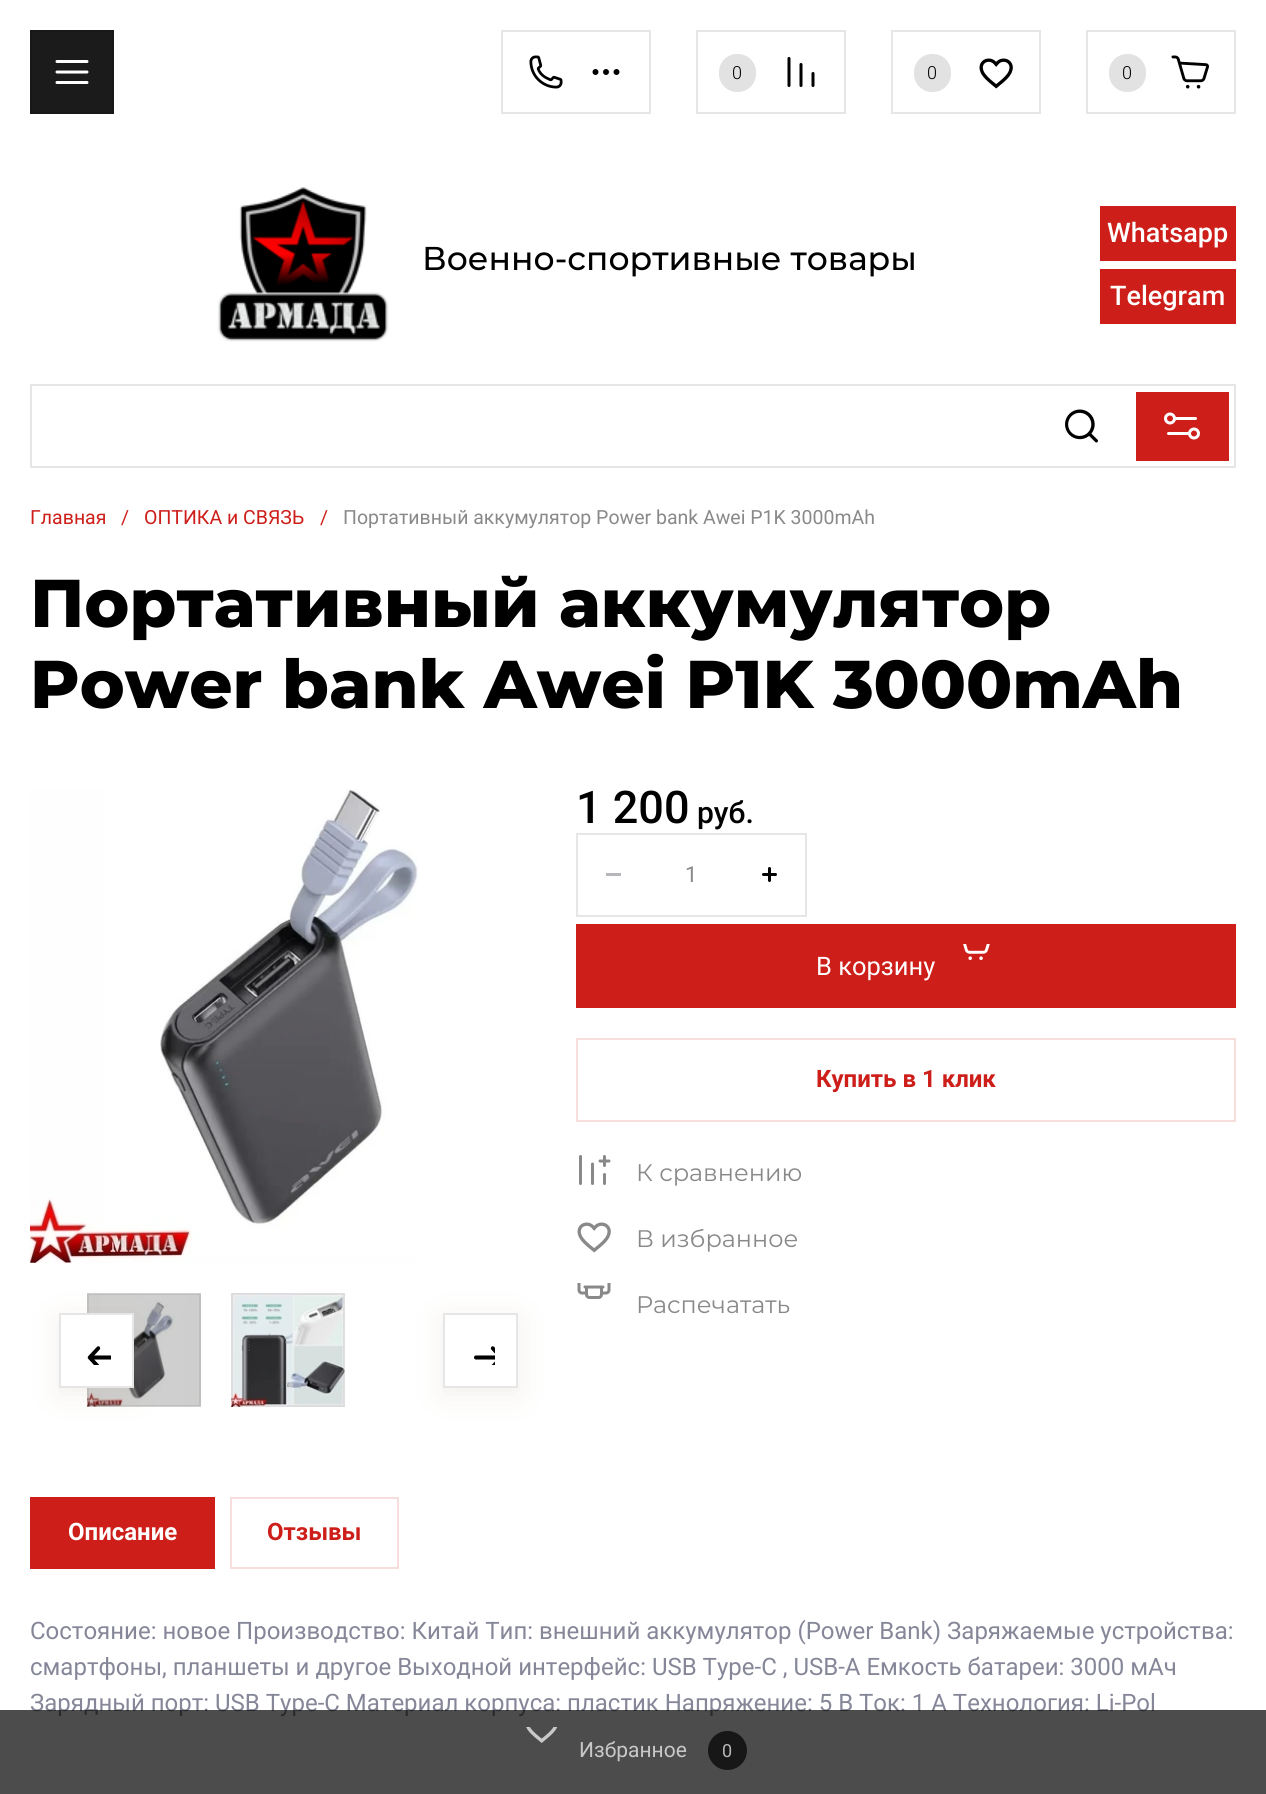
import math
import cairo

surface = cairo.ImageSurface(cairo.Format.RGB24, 1266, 1794)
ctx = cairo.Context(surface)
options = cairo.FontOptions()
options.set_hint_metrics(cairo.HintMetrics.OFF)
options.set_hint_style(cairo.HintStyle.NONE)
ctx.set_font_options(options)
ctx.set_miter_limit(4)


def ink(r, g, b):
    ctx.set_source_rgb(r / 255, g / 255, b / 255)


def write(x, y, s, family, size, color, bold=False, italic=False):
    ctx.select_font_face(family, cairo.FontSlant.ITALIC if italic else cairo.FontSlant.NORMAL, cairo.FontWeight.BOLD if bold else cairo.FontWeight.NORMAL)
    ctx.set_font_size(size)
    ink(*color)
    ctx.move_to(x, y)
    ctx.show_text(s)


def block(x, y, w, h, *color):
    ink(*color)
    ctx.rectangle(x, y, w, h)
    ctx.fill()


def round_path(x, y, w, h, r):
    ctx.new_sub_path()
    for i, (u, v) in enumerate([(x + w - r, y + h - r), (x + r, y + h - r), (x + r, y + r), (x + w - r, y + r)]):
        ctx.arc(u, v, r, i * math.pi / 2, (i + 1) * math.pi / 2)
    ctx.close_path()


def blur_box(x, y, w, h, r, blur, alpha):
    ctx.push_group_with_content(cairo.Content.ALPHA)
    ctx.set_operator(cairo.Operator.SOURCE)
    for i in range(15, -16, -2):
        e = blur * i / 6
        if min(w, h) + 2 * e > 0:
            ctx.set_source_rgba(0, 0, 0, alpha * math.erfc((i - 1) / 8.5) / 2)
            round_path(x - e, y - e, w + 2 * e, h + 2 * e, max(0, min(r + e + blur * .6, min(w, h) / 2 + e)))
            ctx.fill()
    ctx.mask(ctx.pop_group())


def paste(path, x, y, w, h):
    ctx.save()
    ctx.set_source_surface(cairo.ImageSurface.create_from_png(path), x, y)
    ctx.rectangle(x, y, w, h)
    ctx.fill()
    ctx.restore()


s1 = dict(family="Roboto Light", size=18, color=(0, 0, 0))
s2 = dict(family="Montserrat Medium", size=33, color=(0, 0, 0))
s3 = dict(family="Roboto Medium", size=27, color=(255, 255, 255))
s4 = dict(family="Roboto", size=19.5, color=(205, 30, 25))
s5 = dict(family="Roboto", size=19.5, color=(137, 137, 137))
s6 = dict(family="Montserrat ExtraBold", size=67.5, color=(0, 0, 0))
s7 = dict(family="Roboto Medium", size=45, color=(0, 0, 0))
s8 = dict(family="Roboto Medium", size=30, color=(0, 0, 0))
s9 = dict(family="Roboto", size=22, color=(137, 137, 137))
s10 = dict(family="Roboto", size=25.5, color=(255, 255, 255))
s11 = dict(family="Roboto", size=24, color=(205, 30, 25), bold=True)
s12 = dict(family="Montserrat", size=24, color=(137, 137, 137))
s13 = dict(family="Roboto", size=24, color=(255, 255, 255), bold=True)
s14 = dict(family="Roboto", size=24, color=(133, 135, 152))
s15 = dict(family="Roboto", size=21, color=(200, 200, 201))
s16 = dict(family="Roboto", size=18, color=(185, 185, 185))

ink(255, 255, 255)
ctx.paint()
ink(27, 27, 27)
ctx.rectangle(31, 31, 82, 82)
ctx.fill_preserve()
ink(24, 24, 24)
ctx.stroke()
paste("pic1.png", 55, 60, 34, 24)
ctx.rectangle(502, 31, 148, 82)
ink(230, 230, 230)
ctx.stroke()
paste("pic2.png", 529, 55, 34, 34)
paste("pic3.png", 592, 69, 28, 6)
ctx.rectangle(697, 31, 148, 82)
ctx.stroke()
ink(226, 226, 226)
round_path(719, 54, 37, 38, 18)
ctx.fill()
write(732, 79, "0", **s1)
paste("pic4.png", 787, 57, 28, 30)
ctx.rectangle(892, 31, 148, 82)
ink(230, 230, 230)
ctx.stroke()
ink(226, 226, 226)
round_path(914, 54, 37, 38, 18)
ctx.fill()
write(927, 79, "0", **s1)
paste("pic5.png", 979, 58, 34, 31)
ctx.rectangle(1087, 31, 148, 82)
ink(230, 230, 230)
ctx.stroke()
ink(226, 226, 226)
round_path(1109, 54, 37, 38, 18)
ctx.fill()
write(1122, 79, "0", **s1)
paste("pic6.png", 1171, 55, 38, 34)
paste("pic7.png", 217, 187, 172, 155)
write(422, 270, "Военно-спортивные товары", **s2)
block(1100, 206, 136, 55, 205, 30, 25)
write(1107, 242, "Whatsapp", **s3)
block(1100, 269, 136, 55, 205, 30, 25)
write(1110, 305, "Telegram", **s3)
ctx.rectangle(31, 385, 1204, 82)
ink(230, 230, 230)
ctx.stroke()
paste("pic8.png", 1065, 409, 33, 34)
block(1136, 392, 93, 69, 205, 30, 25)
paste("pic9.png", 1164, 412, 36, 28)
write(30, 524, "Главная", **s4)
write(121, 524, "/", **s4)
write(144, 524, "ОПТИКА и СВЯЗЬ", **s4)
write(320, 524, "/", **s4)
write(343, 524, "Портативный аккумулятор Power bank Awei P1K 3000mAh", **s5)
write(30, 627, "Портативный аккумулятор", **s6)
write(30, 708, "Power bank Awei P1K 3000mAh", **s6)
paste("pic10.png", 30, 789, 388, 474)
paste("pic13.png", 87, 1293, 114, 114)
ctx.rectangle(88, 1294, 112, 112)
ctx.set_source_rgba(0.204, 0.204, 0.204, 0.1)
ctx.stroke()
ink(195, 178, 155)
blur_box(59, 1319, 75, 75, 0, 15, 0.2)
ink(255, 255, 255)
ctx.rectangle(60, 1314, 73, 73)
ctx.fill_preserve()
ink(230, 230, 230)
ctx.stroke()
paste("pic11.png", 87, 1346, 24, 19)
ink(195, 178, 155)
blur_box(443, 1319, 75, 75, 0, 15, 0.2)
ink(255, 255, 255)
ctx.rectangle(444, 1314, 73, 73)
ctx.fill_preserve()
ink(230, 230, 230)
ctx.stroke()
paste("pic12.png", 474, 1346, 21, 19)
paste("pic14.png", 231, 1293, 114, 114)
ctx.rectangle(232, 1294, 112, 112)
ctx.set_source_rgba(0.227, 0.227, 0.227, 0.1)
ctx.stroke()
write(576, 823, "1 200", **s7)
write(697, 823, "руб.", **s8)
ctx.rectangle(577, 834, 229, 82)
ink(230, 230, 230)
ctx.stroke()
block(606, 873, 15, 3, 182, 183, 186)
write(685, 882, "1", **s9)
paste("pic15.png", 762, 867, 15, 15)
block(576, 924, 660, 84, 205, 30, 25)
paste("pic16.png", 963, 944, 27, 16)
write(816, 975, "В корзину", **s10)
ctx.rectangle(577, 1039, 658, 82)
ink(248, 221, 221)
ctx.stroke()
write(816, 1087, "Купить в 1 клик", **s11)
paste("pic17.png", 579, 1155, 32, 30)
write(636, 1181, "К сравнению", **s12)
paste("pic18.png", 577, 1222, 34, 31)
write(636, 1247, "В избранное", **s12)
paste("pic19.png", 577, 1283, 34, 16)
write(636, 1313, "Распечатать", **s12)
block(30, 1497, 185, 72, 205, 30, 25)
write(68, 1540, "Описание", **s13)
ctx.rectangle(231, 1498, 167, 70)
ink(248, 221, 221)
ctx.stroke()
write(267, 1540, "Отзывы", **s11)
write(30, 1639, "Состояние: новое Производство: Китай Тип: внешний аккумулятор (Power Bank) Заряжаемые устройства:", **s14)
write(30, 1675, "смартфоны, планшеты и другое Выходной интерфейс: USB Type-C , USB-А Емкость батареи: 3000 мАч", **s14)
write(30, 1711, "Зарядный порт: USB Type-C Материал корпуса: пластик Напряжение: 5 В Ток: 1 А Технология: Li-Pol", **s14)
ctx.set_source_rgba(0, 0, 0, 0.7)
ctx.rectangle(0, 1710, 1266, 84)
ctx.fill()
paste("pic20.png", 526, 1727, 32, 16)
write(579, 1757, "Избранное", **s15)
ctx.set_source_rgba(0, 0, 0, 0.7)
ctx.new_path()
ctx.arc(727.5, 1750.5, 19.5, 0, 2 * math.pi)
ctx.fill()
write(722, 1757, "0", **s16)
surface.write_to_png("screenshot.png")
